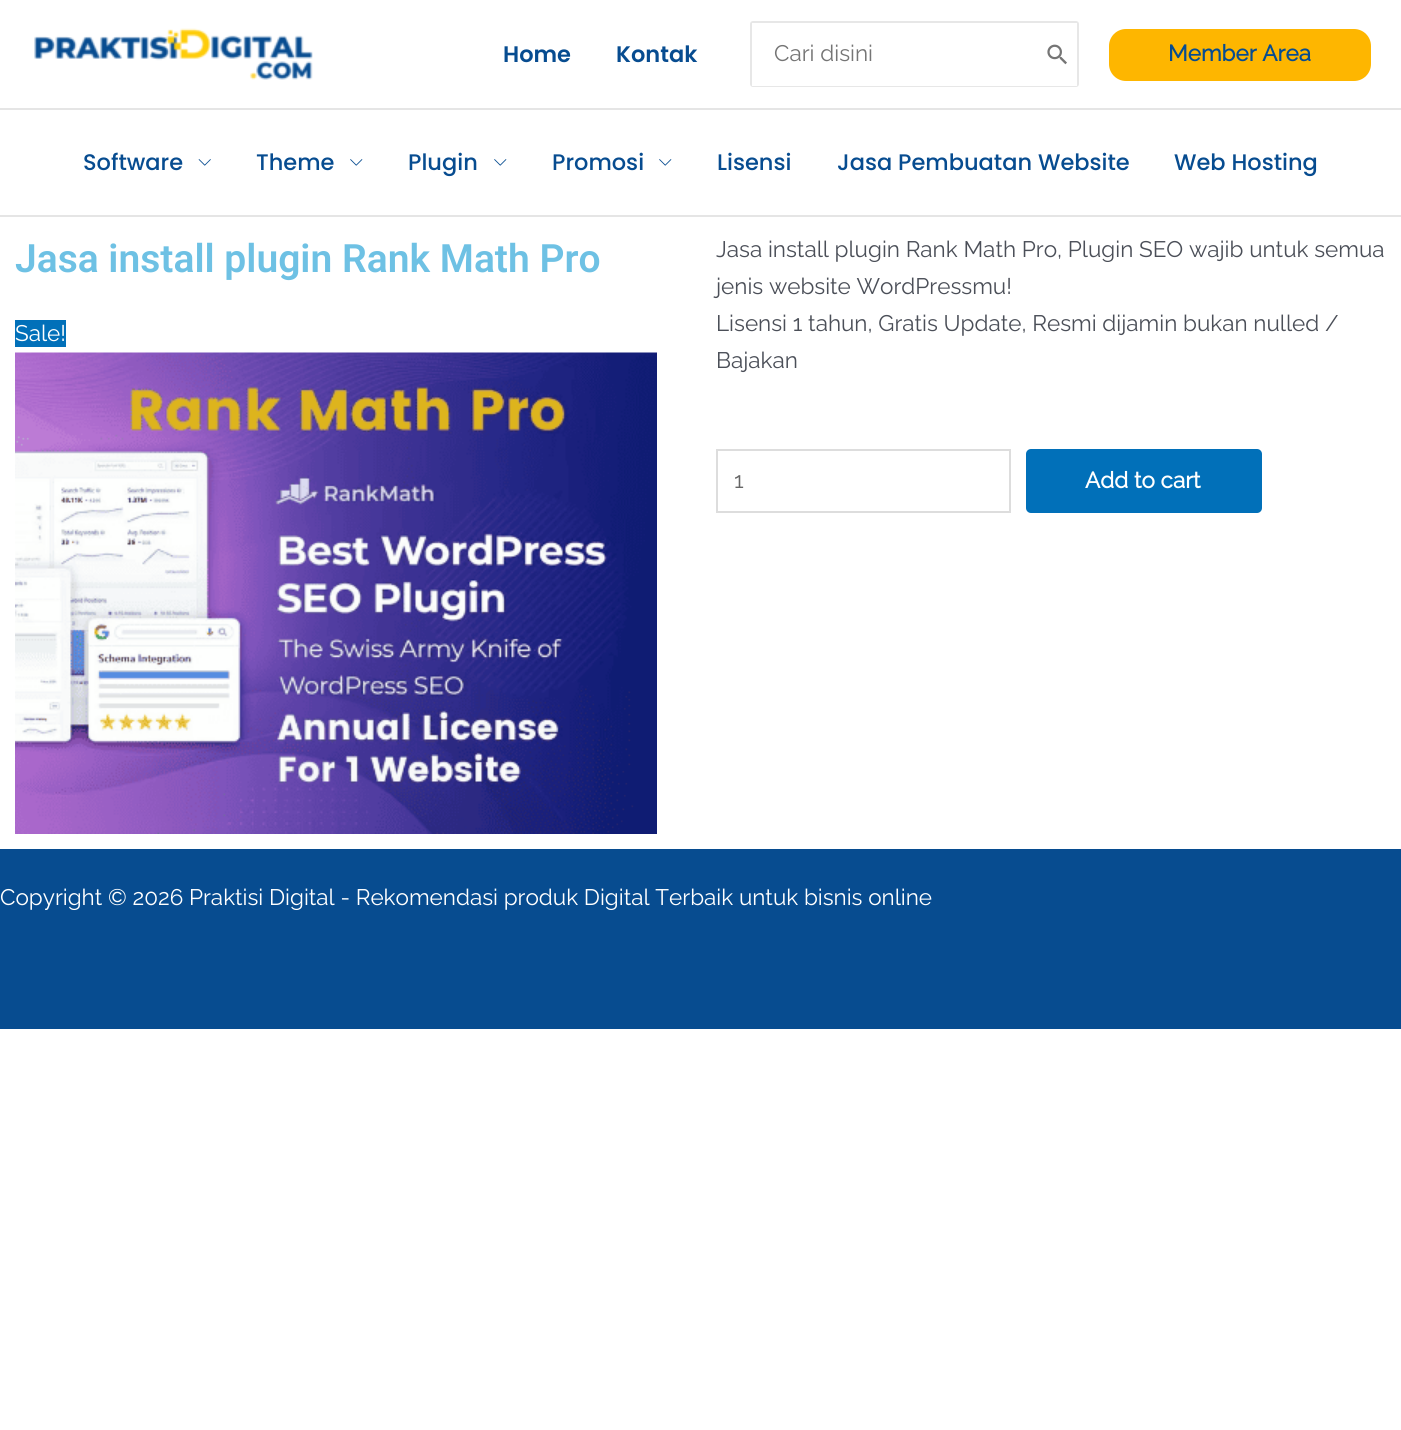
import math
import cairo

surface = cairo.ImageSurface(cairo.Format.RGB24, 1401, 1430)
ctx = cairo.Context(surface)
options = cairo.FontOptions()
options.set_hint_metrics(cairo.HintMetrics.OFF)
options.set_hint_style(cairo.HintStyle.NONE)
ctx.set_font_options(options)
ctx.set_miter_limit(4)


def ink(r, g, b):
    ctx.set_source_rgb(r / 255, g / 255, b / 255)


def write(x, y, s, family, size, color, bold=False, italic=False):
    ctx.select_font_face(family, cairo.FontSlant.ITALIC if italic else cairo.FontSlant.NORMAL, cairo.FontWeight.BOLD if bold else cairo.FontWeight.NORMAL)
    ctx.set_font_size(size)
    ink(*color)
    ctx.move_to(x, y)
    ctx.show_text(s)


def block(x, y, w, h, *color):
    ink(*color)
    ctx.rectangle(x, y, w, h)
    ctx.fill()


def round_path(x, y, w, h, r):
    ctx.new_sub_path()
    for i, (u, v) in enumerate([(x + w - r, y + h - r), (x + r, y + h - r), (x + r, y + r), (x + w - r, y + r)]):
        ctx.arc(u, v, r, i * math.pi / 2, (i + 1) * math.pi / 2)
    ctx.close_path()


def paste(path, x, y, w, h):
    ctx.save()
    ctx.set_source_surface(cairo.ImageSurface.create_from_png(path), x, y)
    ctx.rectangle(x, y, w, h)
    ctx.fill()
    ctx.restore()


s1 = dict(family="Poppins SemiBold", size=22.5, color=(7, 76, 144))
s2 = dict(family="Raleway Thin", size=22.5, color=(117, 117, 117))
s3 = dict(family="Raleway", size=22.5, color=(7, 76, 144), bold=True)
s4 = dict(family="Poppins Medium", size=22.5, color=(7, 76, 144))
s5 = dict(family="Roboto SemiBold", size=39, color=(110, 193, 228))
s6 = dict(family="Raleway Thin", size=22.5, color=(255, 255, 255))
s7 = dict(family="Raleway Thin", size=22.5, color=(75, 79, 88))
s8 = dict(family="Raleway Thin", size=22.5, color=(102, 102, 102))
s9 = dict(family="Raleway", size=22.5, color=(255, 255, 255), bold=True)

ink(255, 255, 255)
ctx.paint()
block(0, 108, 1401, 2, 229, 229, 229)
paste("pic1.png", 34, 28, 279, 52)
write(503, 62, "Home", **s1)
write(616, 62, "Kontak", **s1)
round_path(751, 22, 327, 64, 2)
ink(231, 231, 231)
ctx.stroke()
block(752, 23, 325, 63, 255, 255, 255)
write(774, 61, "Cari disini", **s2)
paste("pic2.png", 1047, 44, 20, 21)
ink(254, 182, 0)
round_path(1109, 29, 262, 52, 17)
ctx.fill()
write(1168, 61, "Member Area", **s3)
block(0, 215, 1401, 2, 229, 229, 229)
write(83, 170, "Software", **s4)
paste("pic3.png", 198, 159, 13, 7)
write(256, 170, "Theme", **s4)
paste("pic4.png", 350, 159, 13, 7)
write(408, 170, "Plugin", **s4)
paste("pic4.png", 494, 159, 13, 7)
write(552, 170, "Promosi", **s4)
paste("pic4.png", 659, 159, 13, 7)
write(717, 170, "Lisensi", **s4)
write(837, 170, "Jasa Pembuatan Website", **s4)
write(1174, 170, "Web Hosting", **s4)
write(15, 272, "Jasa install plugin Rank Math Pro", **s5)
block(15, 320, 51, 27, 1, 112, 185)
write(15, 341, "Sale!", **s6)
paste("pic5.png", 15, 352, 642, 482)
write(716, 257, "Jasa install plugin Rank Math Pro, Plugin SEO wajib untuk semua", **s7)
write(716, 294, "jenis website WordPressmu!", **s7)
write(716, 331, "Lisensi 1 tahun, Gratis Update, Resmi dijamin bukan nulled /", **s7)
write(716, 368, "Bajakan", **s7)
ctx.rectangle(717, 450, 293, 62)
ink(221, 221, 221)
ctx.stroke()
write(734, 488, "1", **s8)
ink(1, 112, 185)
round_path(1026, 449, 236, 64, 5)
ctx.fill()
write(1085, 488, "Add to cart", **s9)
block(0, 849, 1401, 180, 7, 76, 144)
write(0, 905, "Copyright © 2026 Praktisi Digital - Rekomendasi produk Digital Terbaik untuk bisnis online", **s6)
surface.write_to_png("screenshot.png")
